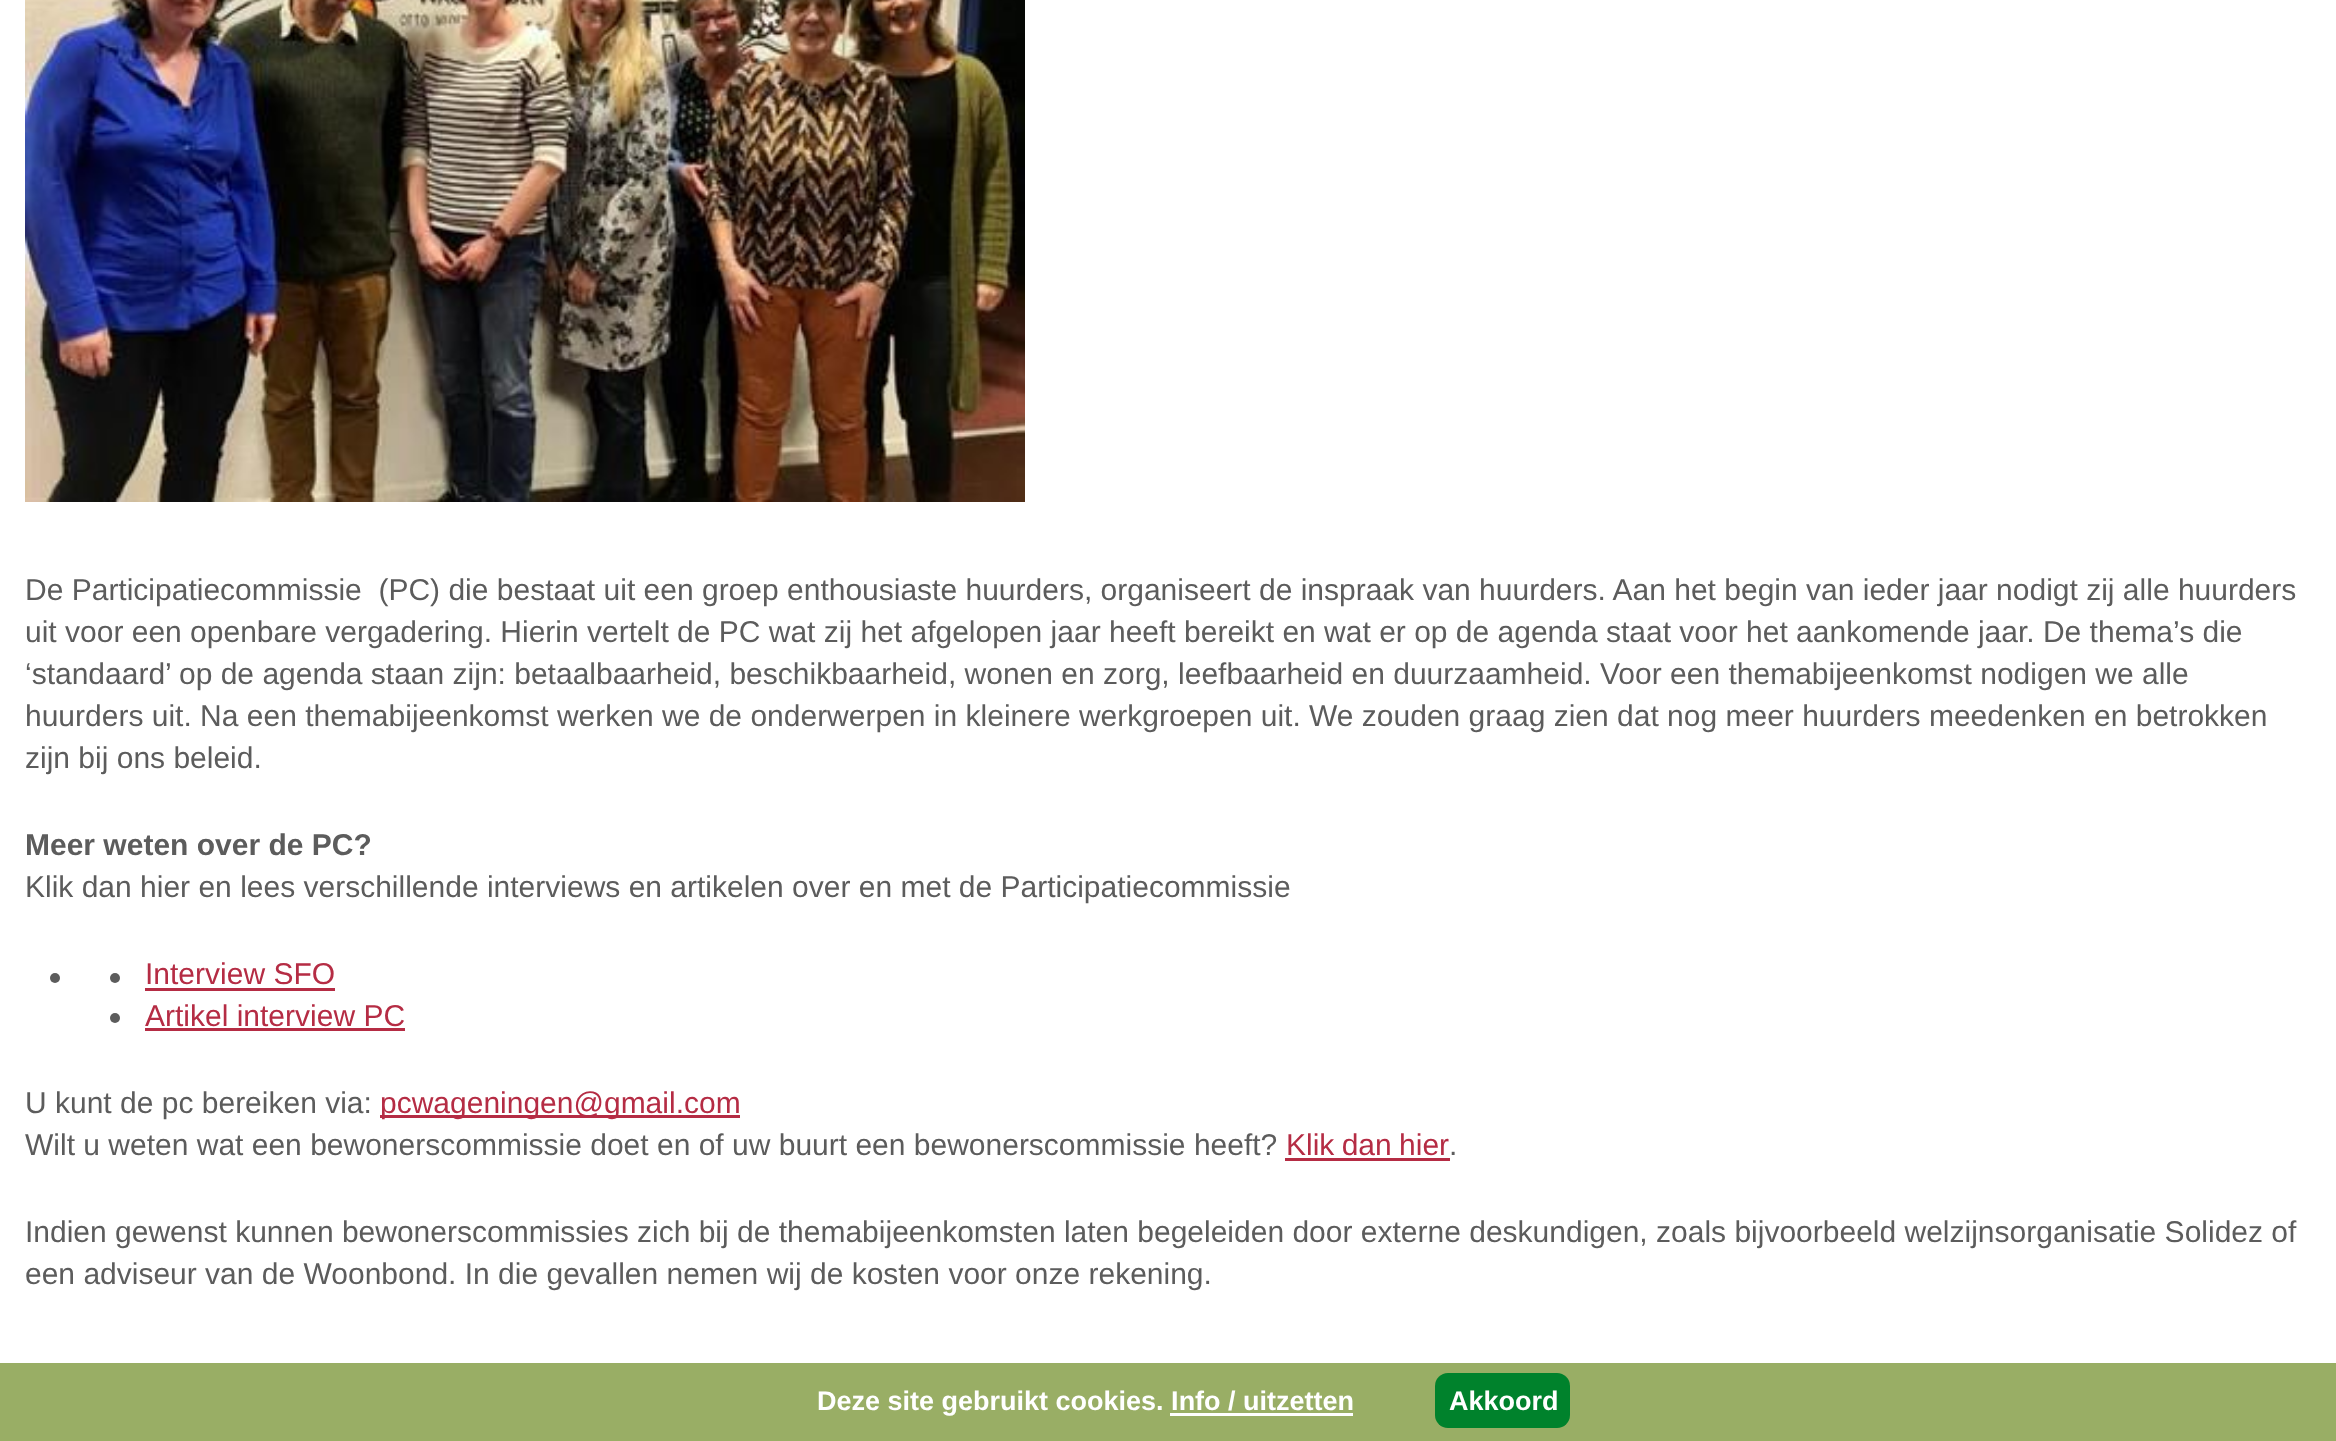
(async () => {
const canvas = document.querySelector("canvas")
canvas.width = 2336
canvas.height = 1441
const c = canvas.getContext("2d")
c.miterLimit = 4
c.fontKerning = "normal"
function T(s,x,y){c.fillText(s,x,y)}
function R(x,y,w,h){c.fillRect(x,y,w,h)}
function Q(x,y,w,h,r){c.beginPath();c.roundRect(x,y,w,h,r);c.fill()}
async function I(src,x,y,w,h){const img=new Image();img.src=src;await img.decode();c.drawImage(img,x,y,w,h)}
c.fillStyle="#fff"
R(0,0,2336,1441)
await I("1.png",25,0,1000,502)
c.font="30px Liberation Sans"
c.fillStyle="#5c5c5c"
T("De Participatiecommissie  (PC) die bestaat uit een groep enthousiaste huurders, organiseert de inspraak van huurders. Aan het begin van ieder jaar nodigt zij alle huurders",25,600)
T("uit voor een openbare vergadering. Hierin vertelt de PC wat zij het afgelopen jaar heeft bereikt en wat er op de agenda staat voor het aankomende jaar. De thema’s die",25,642)
T("‘standaard’ op de agenda staan zijn: betaalbaarheid, beschikbaarheid, wonen en zorg, leefbaarheid en duurzaamheid. Voor een themabijeenkomst nodigen we alle",25,684)
T("huurders uit. Na een themabijeenkomst werken we de onderwerpen in kleinere werkgroepen uit. We zouden graag zien dat nog meer huurders meedenken en betrokken",25,726)
T("zijn bij ons beleid.",25,768)
c.font="bold 30px Liberation Sans"
T("Meer weten over de PC?",25,855)
c.font="30px Liberation Sans"
T("Klik dan hier en lees verschillende interviews en artikelen over en met de Participatiecommissie",25,897)
c.beginPath()
c.arc(55,978,5,0,7)
c.fill()
c.beginPath()
c.arc(115,978,5,0,7)
c.fill()
c.fillStyle="#b52c44"
T("Interview SFO",145,984)
R(145,988,190,3)
c.fillStyle="#5c5c5c"
c.beginPath()
c.arc(115,1018,5,0,7)
c.fill()
c.fillStyle="#b52c44"
T("Artikel interview PC",145,1026)
R(145,1028,260,3)
c.fillStyle="#5c5c5c"
T("U kunt de pc bereiken via:",25,1113)
c.fillStyle="#b52c44"
R(380,1115,360,3)
T("pcwageningen@gmail.com",380,1113)
c.fillStyle="#5c5c5c"
T("Wilt u weten wat een bewonerscommissie doet en of uw buurt een bewonerscommissie heeft?",25,1155)
c.wordSpacing="-1px"
c.fillStyle="#b52c44"
T("Klik dan hier",1286,1155)
R(1285,1158,165,3)
c.wordSpacing="0px"
c.fillStyle="#5c5c5c"
T(".",1449,1155)
T("Indien gewenst kunnen bewonerscommissies zich bij de themabijeenkomsten laten begeleiden door externe deskundigen, zoals bijvoorbeeld welzijnsorganisatie Solidez of",25,1242)
T("een adviseur van de Woonbond. In die gevallen nemen wij de kosten voor onze rekening.",25,1284)
c.fillStyle="#99ae65"
R(0,1363,2336,78)
c.font="bold 27px Liberation Sans"
c.fillStyle="#fff"
T("Deze site gebruikt cookies. Info / uitzetten",817,1410)
c.fillStyle="#00822c"
Q(1435,1373,135,55,13)
c.fillStyle="#fff"
T("Akkoord",1449,1410)
R(1170,1413,183,3)
})()
